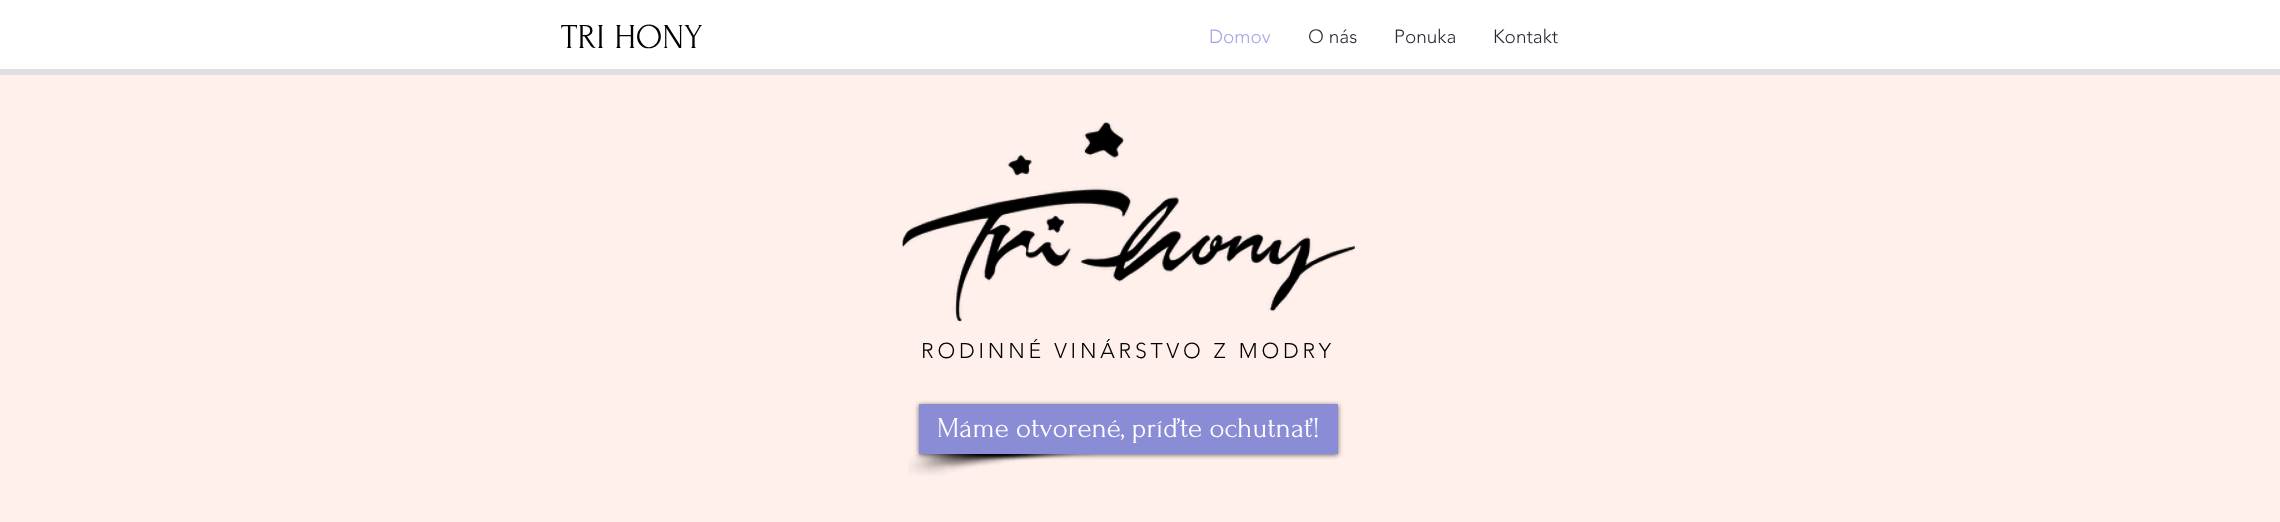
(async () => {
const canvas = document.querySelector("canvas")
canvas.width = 2280
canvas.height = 522
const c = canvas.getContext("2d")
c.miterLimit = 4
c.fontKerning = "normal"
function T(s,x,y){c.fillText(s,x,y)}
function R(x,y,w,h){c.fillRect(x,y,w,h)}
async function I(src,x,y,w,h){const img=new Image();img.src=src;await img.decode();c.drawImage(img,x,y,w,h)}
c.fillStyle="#fff0ec"
R(0,0,2280,522)
c.fillStyle="#fff"
R(0,0,2280,69)
c.fillStyle="#dfdfe1"
R(0,69,2280,6)
c.font="35px Forum"
c.fillStyle="#000"
T("TRI HONY",561,48)
c.font="300 19px 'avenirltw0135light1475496'"
c.fillStyle="#a4a4e4"
T("Domov",1209,43)
c.fillStyle="#282936"
T("O nás",1308,43)
T("Ponuka",1394,43)
T("Kontakt",1493,43)
await I("1.png",902,122,453,200)
c.letterSpacing="3.8px"
c.font="300 21.25px 'avenirltw0135light1475496'"
c.fillStyle="#000"
T("RODINNÉ VINÁRSTVO Z MODRY",921,358)
await I("2.png",908,454,186,22)
c.fillStyle="#00000099"
c.filter="blur(2.5px)"
c.beginPath()
c.rect(919,405,419,50)
c.fill()
c.filter="none"
c.fillStyle="#8b8cd6"
R(919,404,419,50)
c.letterSpacing="0px"
c.font="28.75px Forum"
c.fillStyle="#fff"
T("Máme otvorené, príďte ochutnať!",937,437)
})()
